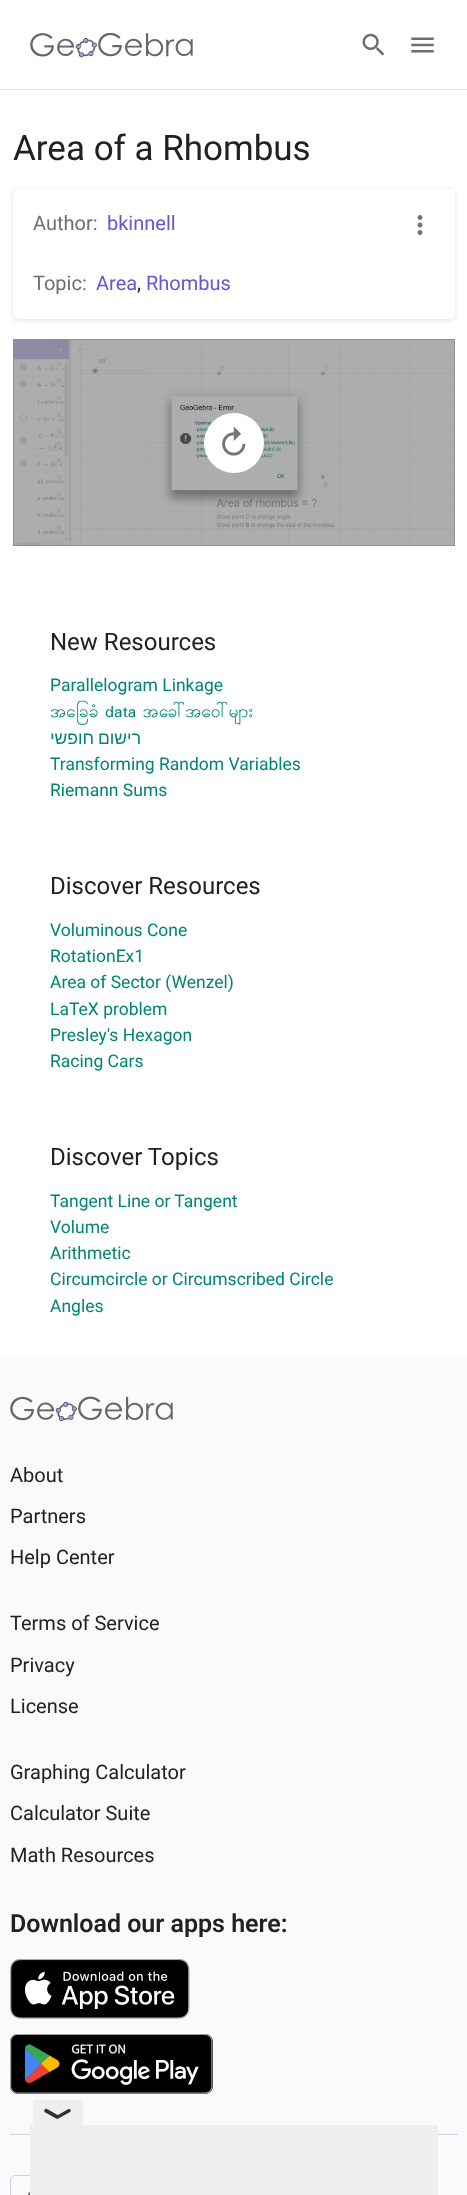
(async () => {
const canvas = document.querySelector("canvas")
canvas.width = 467
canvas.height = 2195
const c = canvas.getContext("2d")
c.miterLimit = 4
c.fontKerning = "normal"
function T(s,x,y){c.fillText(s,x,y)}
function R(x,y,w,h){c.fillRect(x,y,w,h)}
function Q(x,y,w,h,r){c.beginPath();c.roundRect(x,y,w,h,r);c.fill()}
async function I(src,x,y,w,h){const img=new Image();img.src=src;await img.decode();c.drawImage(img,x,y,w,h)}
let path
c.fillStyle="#fff"
R(0,0,467,2195)
c.fillStyle="#e6e6eb"
R(0,89,467,1)
await I("1.png",30,33,163,25)
await I("2.png",362,33,23,23)
await I("3.png",411,37,23,16)
c.font="35px Roboto"
c.fillStyle="#212121"
T("Area of a Rhombus",13,160)
c.fillStyle="#1c1c1f24"
c.filter="blur(2.5px)"
c.beginPath()
c.roundRect(13,190,442,130,5)
c.fill()
c.filter="none"
c.fillStyle="#fff"
Q(13,189,442,130,5)
c.font="20px Roboto"
c.fillStyle="#6e6d73"
T("Author:",33,230)
c.fillStyle="#6557d2"
T("bkinnell",107,230)
c.fillStyle="#6e6d73"
T("Topic:",33,290)
c.fillStyle="#6557d2"
T("Area",96,290)
c.fillStyle="#212121"
T(",",137,290)
c.fillStyle="#6557d2"
T("Rhombus",146,290)
await I("4.png",417,215,6,20)
await I("5.png",13,340,442,207)
c.strokeStyle="#8f8f8f"
c.strokeRect(13.5,339.5,441,206)
c.fillStyle="#fff"
c.beginPath()
c.arc(234,443,30,0,7)
c.fill()
await I("6.png",222,426,24,30)
c.font="24px Roboto"
c.fillStyle="#212121"
T("New Resources",50,650)
c.font="17.5px Roboto"
c.fillStyle="#008475"
T("Parallelogram Linkage",50,691)
c.font="17.5px Padauk"
T("အခြေခံ data အခေါ်အဝေါ်များ",50,717)
c.wordSpacing="-1px"
c.direction="rtl"
c.font="17.5px Liberation Sans"
T("רישום חופשי",141,744)
c.wordSpacing="0px"
c.direction="ltr"
c.font="17.5px Roboto"
T("Transforming Random Variables",50,770)
T("Riemann Sums",50,796)
c.font="24px Roboto"
c.fillStyle="#212121"
T("Discover Resources",50,894)
c.font="17.5px Roboto"
c.fillStyle="#008475"
T("Voluminous Cone",50,936)
T("RotationEx1",50,962)
T("Area of Sector (Wenzel)",50,988)
T("LaTeX problem",50,1015)
T("Presley's Hexagon",50,1041)
T("Racing Cars",50,1067)
c.font="24px Roboto"
c.fillStyle="#212121"
T("Discover Topics",50,1165)
c.font="17.5px Roboto"
c.fillStyle="#008475"
T("Tangent Line or Tangent",50,1207)
T("Volume",50,1233)
T("Arithmetic",50,1259)
T("Circumcircle or Circumscribed Circle",50,1285)
T("Angles",50,1312)
c.fillStyle="#fafafc"
R(0,1356,467,839)
await I("7.png",10,1396,163,25)
c.font="20px Roboto"
c.fillStyle="#212121"
T("About",10,1482)
T("Partners",10,1523)
T("Help Center",10,1564)
T("Terms of Service",10,1630)
T("Privacy",10,1672)
T("License",10,1713)
T("Graphing Calculator",10,1779)
T("Calculator Suite",10,1820)
T("Math Resources",10,1862)
c.font="600 25px Roboto"
T("Download our apps here:",10,1932)
await I("8.png",10,1959,180,60)
await I("9.png",10,2034,203,60)
c.fillStyle="#d1d0d6"
R(10,2134,448,1)
c.beginPath()
c.roundRect(10.5,2175.5,289,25,4.5)
c.strokeStyle="#d1d0d6"
c.stroke()
await I("10.png",27,2191,3,4)
c.fillStyle="#efefef"
c.beginPath()
c.roundRect(33,2100,50,25,[2.5,2.5,0,0])
c.fill()
c.fillStyle="#313131"
path = new Path2D("M47 2109l11.5 6.5c1 2-1 4-2.5 3l-11.5-6.5c-1-2 1-4 2.5-3z")
c.fill(path)
path = new Path2D("M57 2115.5l11.5-6.5c2-.5 3 2 1.5 3l-11.5 6.5c-2 .5-3-2.5-1.5-3z")
c.fill(path)
c.fillStyle="#efefef"
R(30,2125,408,70)
})()
